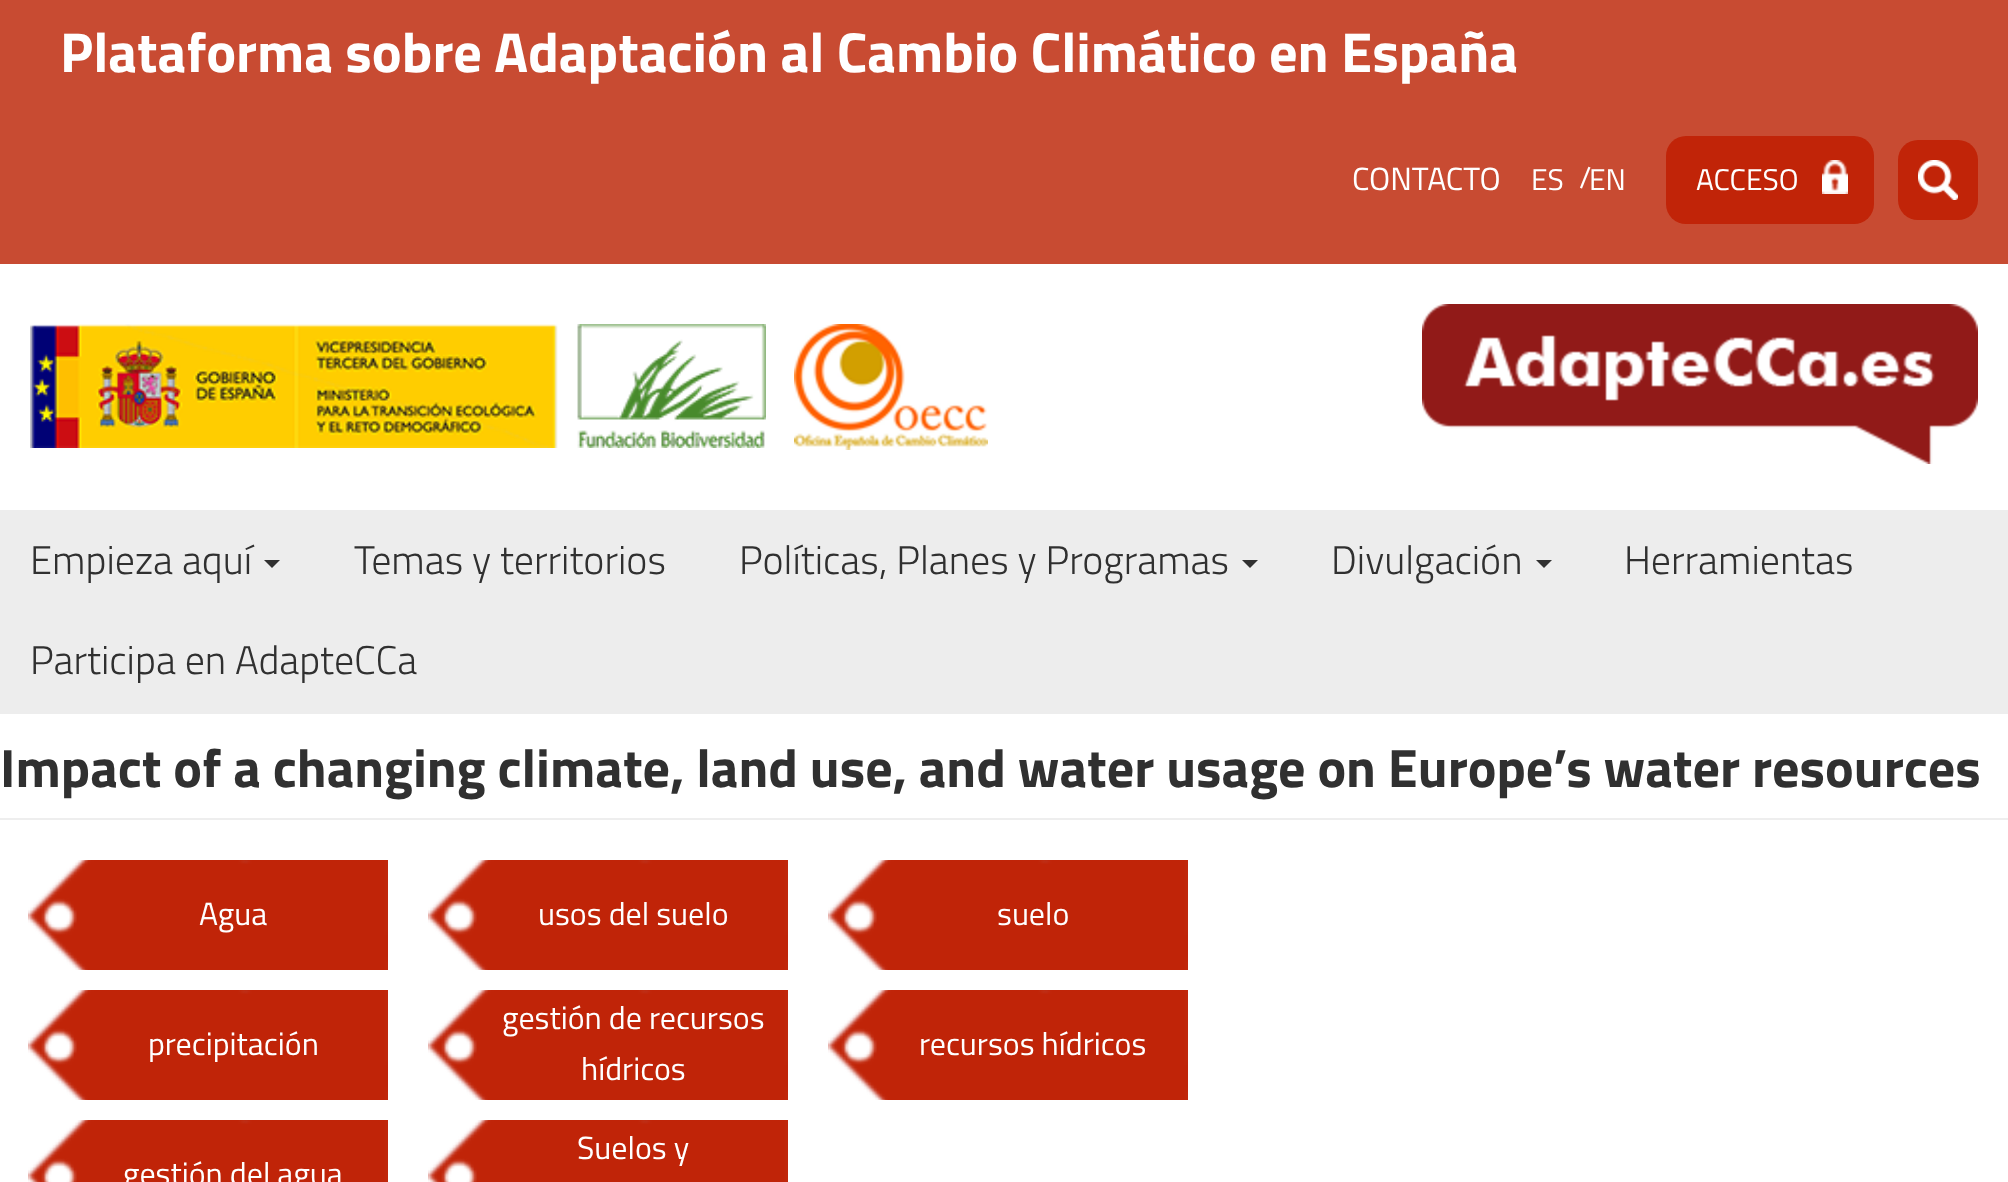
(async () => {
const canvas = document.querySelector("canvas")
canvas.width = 2008
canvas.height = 1182
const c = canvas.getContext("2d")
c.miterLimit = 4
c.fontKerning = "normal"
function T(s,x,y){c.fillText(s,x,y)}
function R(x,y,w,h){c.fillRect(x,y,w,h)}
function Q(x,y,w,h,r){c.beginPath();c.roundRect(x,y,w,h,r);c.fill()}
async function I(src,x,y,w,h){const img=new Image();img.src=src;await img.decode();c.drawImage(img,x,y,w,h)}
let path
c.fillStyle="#fff"
R(0,0,2008,1182)
c.fillStyle="#c84b32"
R(0,0,2008,264)
c.font="bold 56.25px Titillium Web"
c.fillStyle="#fff"
T("Plataforma sobre Adaptación al Cambio Climático en España",60,72)
c.font="32px Titillium Web"
T("CONTACTO",1352,190)
c.font="30px Titillium Web"
T("ES",1531,190)
T("/",1579,188)
T("EN",1589,190)
c.fillStyle="#c12408"
Q(1666,136,208,88,20)
c.fillStyle="#fff"
T("ACCESO",1696,190)
await I("1.png",1822,160,26,34)
c.fillStyle="#c12408"
Q(1898,140,80,80,20)
await I("2.png",1918,160,40,40)
await I("3.png",30,324,736,124)
await I("4.png",794,324,194,126)
await I("5.png",1422,304,556,160)
c.fillStyle="#ededed"
R(0,510,2008,204)
c.font="300 40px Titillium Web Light"
c.fillStyle="#303030"
T("Empieza aquí",30,574)
path = new Path2D("M264 560h16l-8 8z")
c.fill(path)
T("Temas y territorios",354,574)
T("Políticas, Planes y Programas",739,574)
path = new Path2D("M1242 560h16l-8 8z")
c.fill(path)
T("Divulgación",1331,574)
path = new Path2D("M1536 560h16l-8 8z")
c.fill(path)
T("Herramientas",1624,574)
T("Participa en AdapteCCa",30,674)
c.fillStyle="#eee"
R(0,818,2008,2)
c.font="bold 54px Titillium Web"
c.fillStyle="#303030"
T("Impact of a changing climate, land use, and water usage on Europe’s water resources",0,787)
await I("6.png",28,860,360,110)
c.font="32px Titillium Web"
c.fillStyle="#fff"
T("Agua",199,925)
await I("6.png",428,860,360,110)
T("usos del suelo",538,925)
await I("7.png",828,860,360,110)
T("suelo",997,925)
await I("6.png",28,990,360,110)
T("precipitación",148,1055)
await I("6.png",428,990,360,110)
T("gestión de recursos",502,1029)
T("hídricos",581,1080)
await I("7.png",828,990,360,110)
T("recursos hídricos",919,1055)
await I("8.png",428,1120,360,62)
T("Suelos y",577,1159)
await I("8.png",28,1120,360,62)
T("gestión del agua",123,1185)
})()
